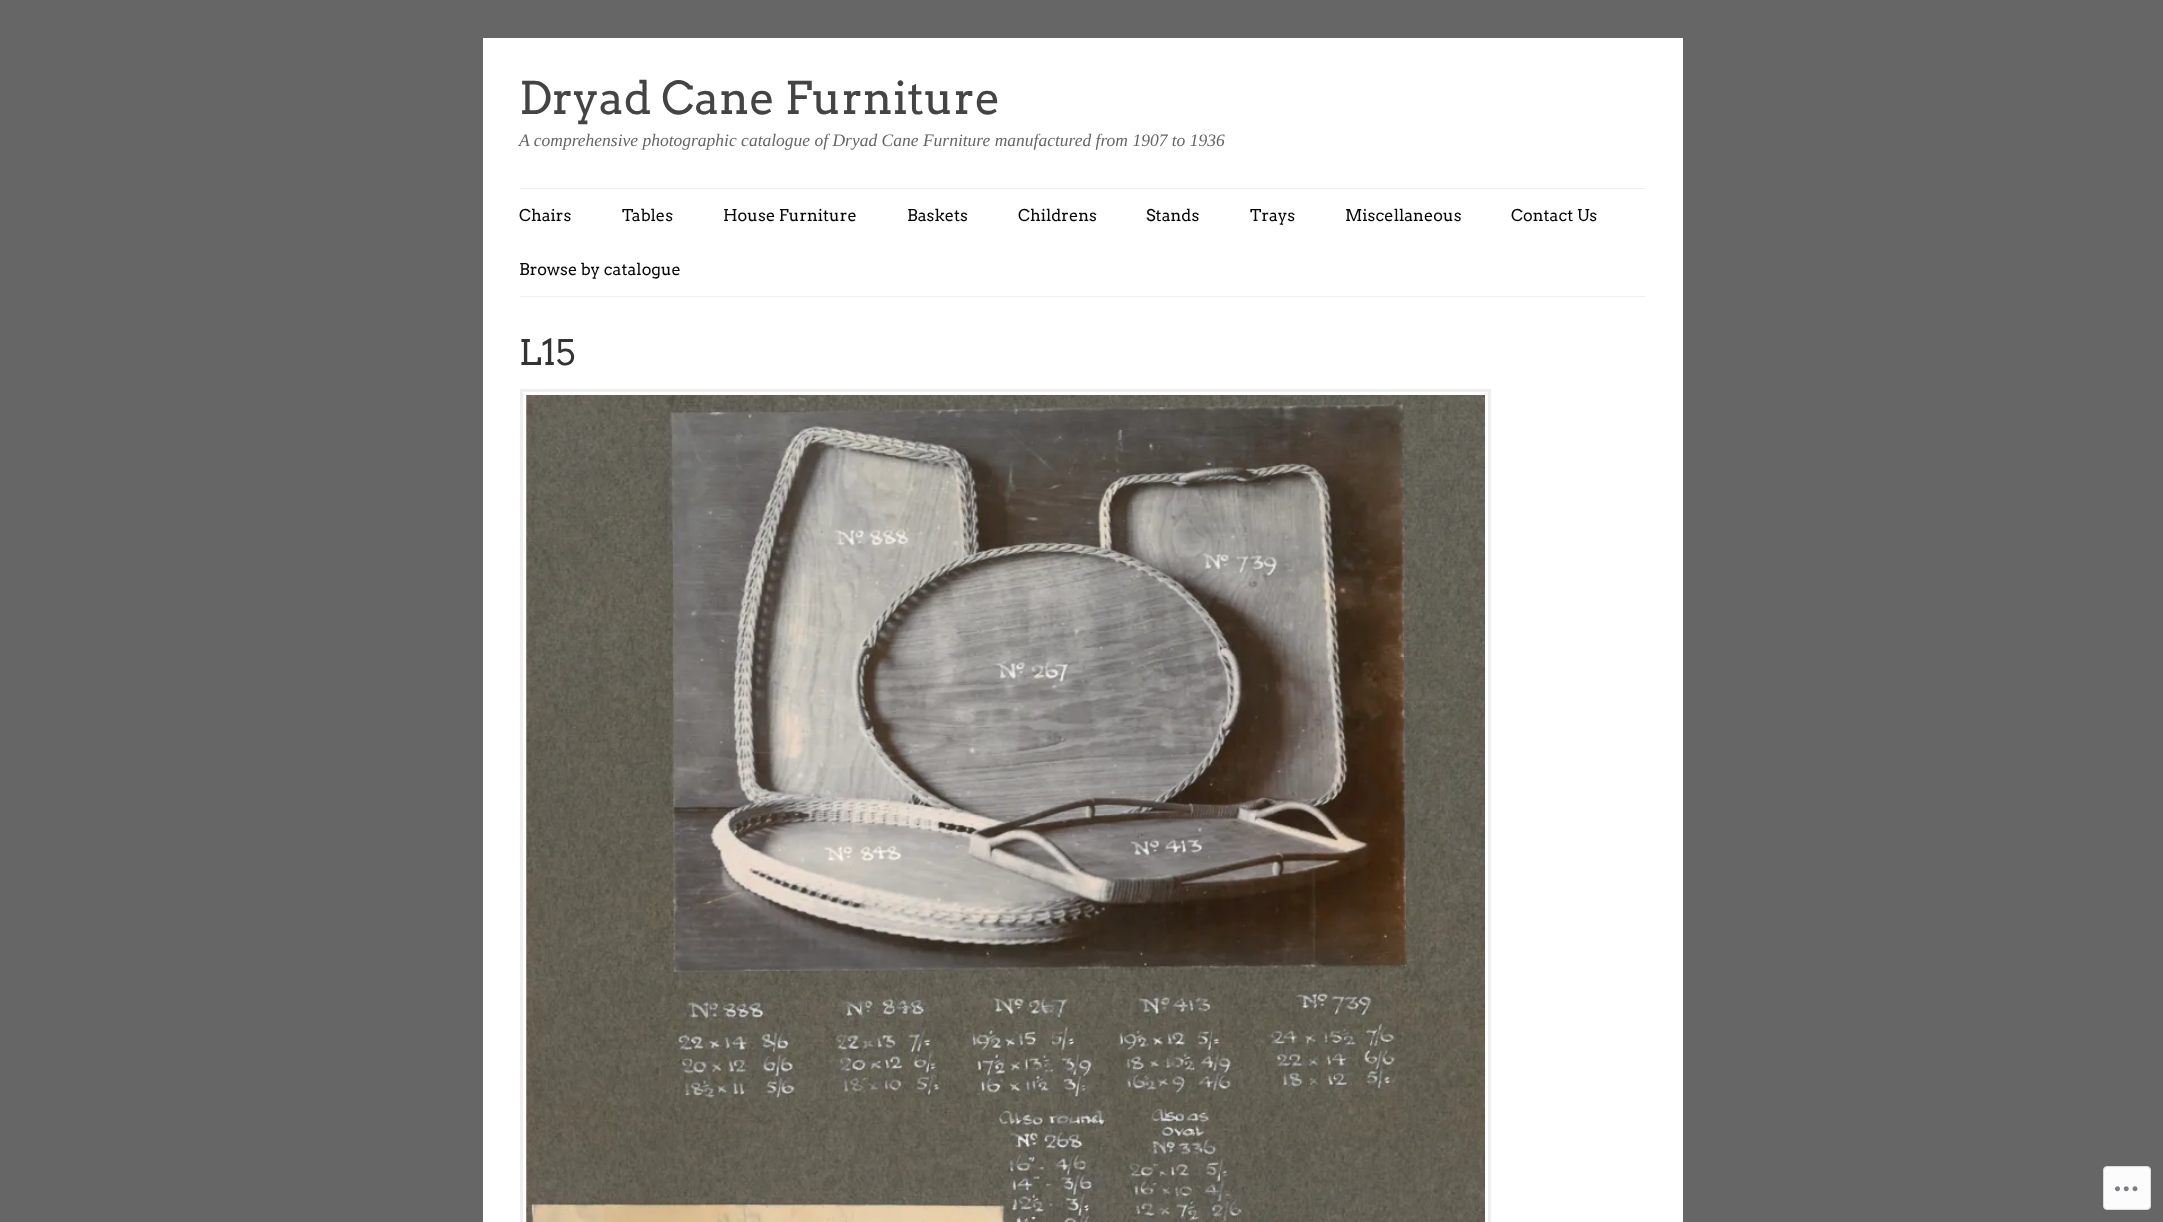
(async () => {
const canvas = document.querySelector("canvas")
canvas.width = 2163
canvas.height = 1222
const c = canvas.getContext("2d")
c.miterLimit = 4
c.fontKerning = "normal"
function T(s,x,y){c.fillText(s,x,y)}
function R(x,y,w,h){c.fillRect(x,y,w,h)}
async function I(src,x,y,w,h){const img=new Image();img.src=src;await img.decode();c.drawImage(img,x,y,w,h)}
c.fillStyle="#666"
R(0,0,2163,1222)
c.fillStyle="#fff"
R(483,38,1200,1184)
c.font="45px Arvo"
c.fillStyle="#444"
T("Dryad Cane Furniture",519,114)
c.font="italic 17.5px Liberation Serif"
c.fillStyle="#666"
T("A comprehensive photographic catalogue of Dryad Cane Furniture manufactured from 1907 to 1936",519,146)
c.fillStyle="#efefef"
R(520,188,1125,1)
R(520,296,1125,1)
c.font="16.25px Arvo"
c.fillStyle="#070707"
T("Chairs",519,221)
T("Tables",622,221)
T("House Furniture",723,221)
T("Baskets",907,221)
T("Childrens",1018,221)
T("Stands",1146,221)
T("Trays",1250,221)
T("Miscellaneous",1345,221)
T("Contact Us",1511,221)
T("Browse by catalogue",519,275)
c.font="35px Arvo"
c.fillStyle="#333"
T("L15",519,365)
c.strokeStyle="#eee"
c.lineWidth=3
c.strokeRect(521.5,390.5,968,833)
await I("1.png",526,395,959,827)
c.fillStyle="#fcfcfc"
c.beginPath()
c.roundRect(2103.5,1166.5,47,43,3.5)
c.fill()
c.strokeStyle="#dadadc"
c.lineWidth=1
c.stroke()
await I("2.png",2115,1186,23,6)
})()
